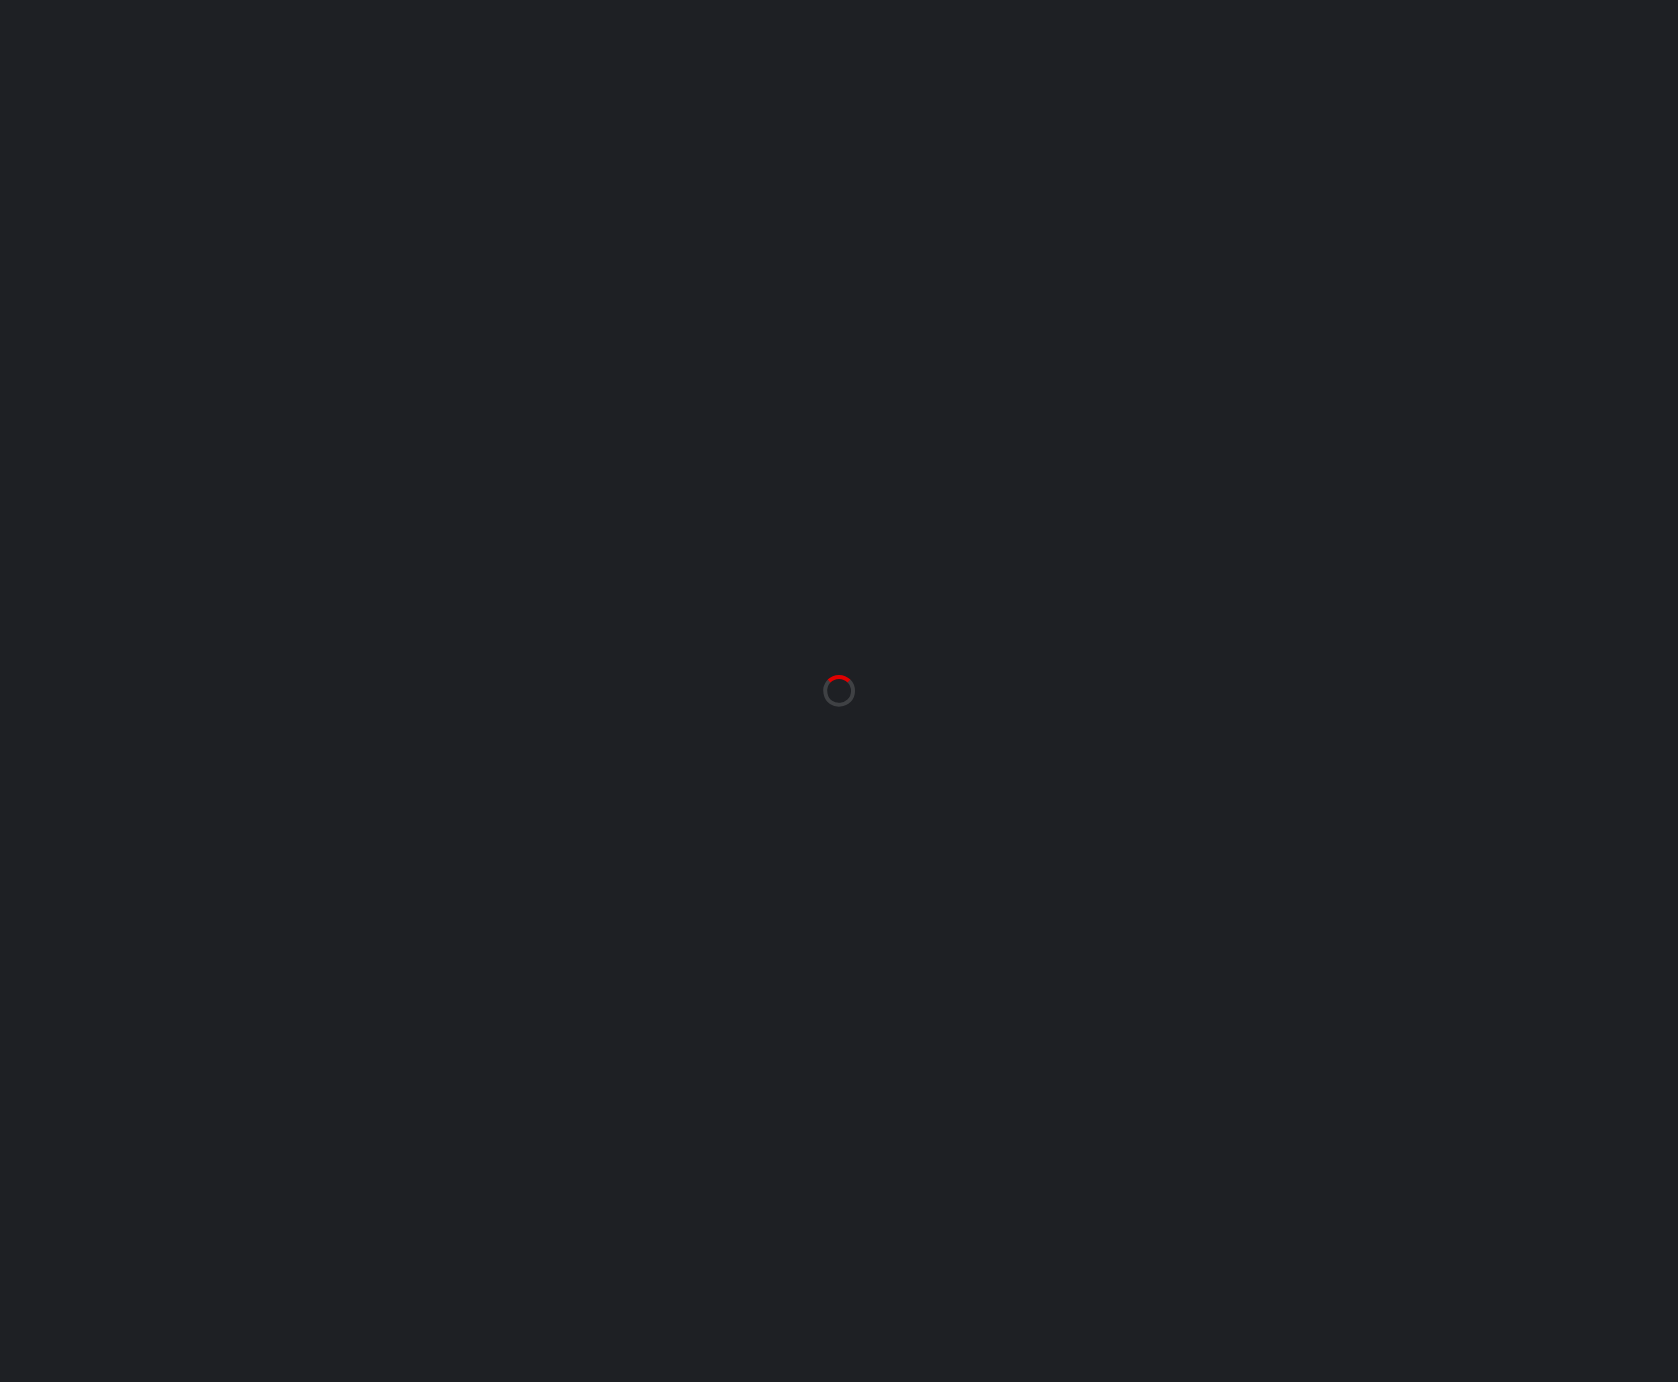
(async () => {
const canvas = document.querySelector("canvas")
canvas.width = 1678
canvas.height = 1382
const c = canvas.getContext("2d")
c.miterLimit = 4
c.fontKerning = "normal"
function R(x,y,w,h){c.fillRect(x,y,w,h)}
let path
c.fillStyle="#1e2024"
R(0,0,1678,1382)
path = new Path2D("M829 681c5.5-5.5 14.5-5.5 20 0")
c.strokeStyle="#e00000"
c.lineWidth=4
c.stroke(path)
path = new Path2D("M849 681c2.5 2.5 4 6.5 4 10c0 16.5-24.5 19-27.5 2.5c-1-4.5 .5-9 3.5-12.5")
c.strokeStyle="#ffffff26"
c.stroke(path)
})()
